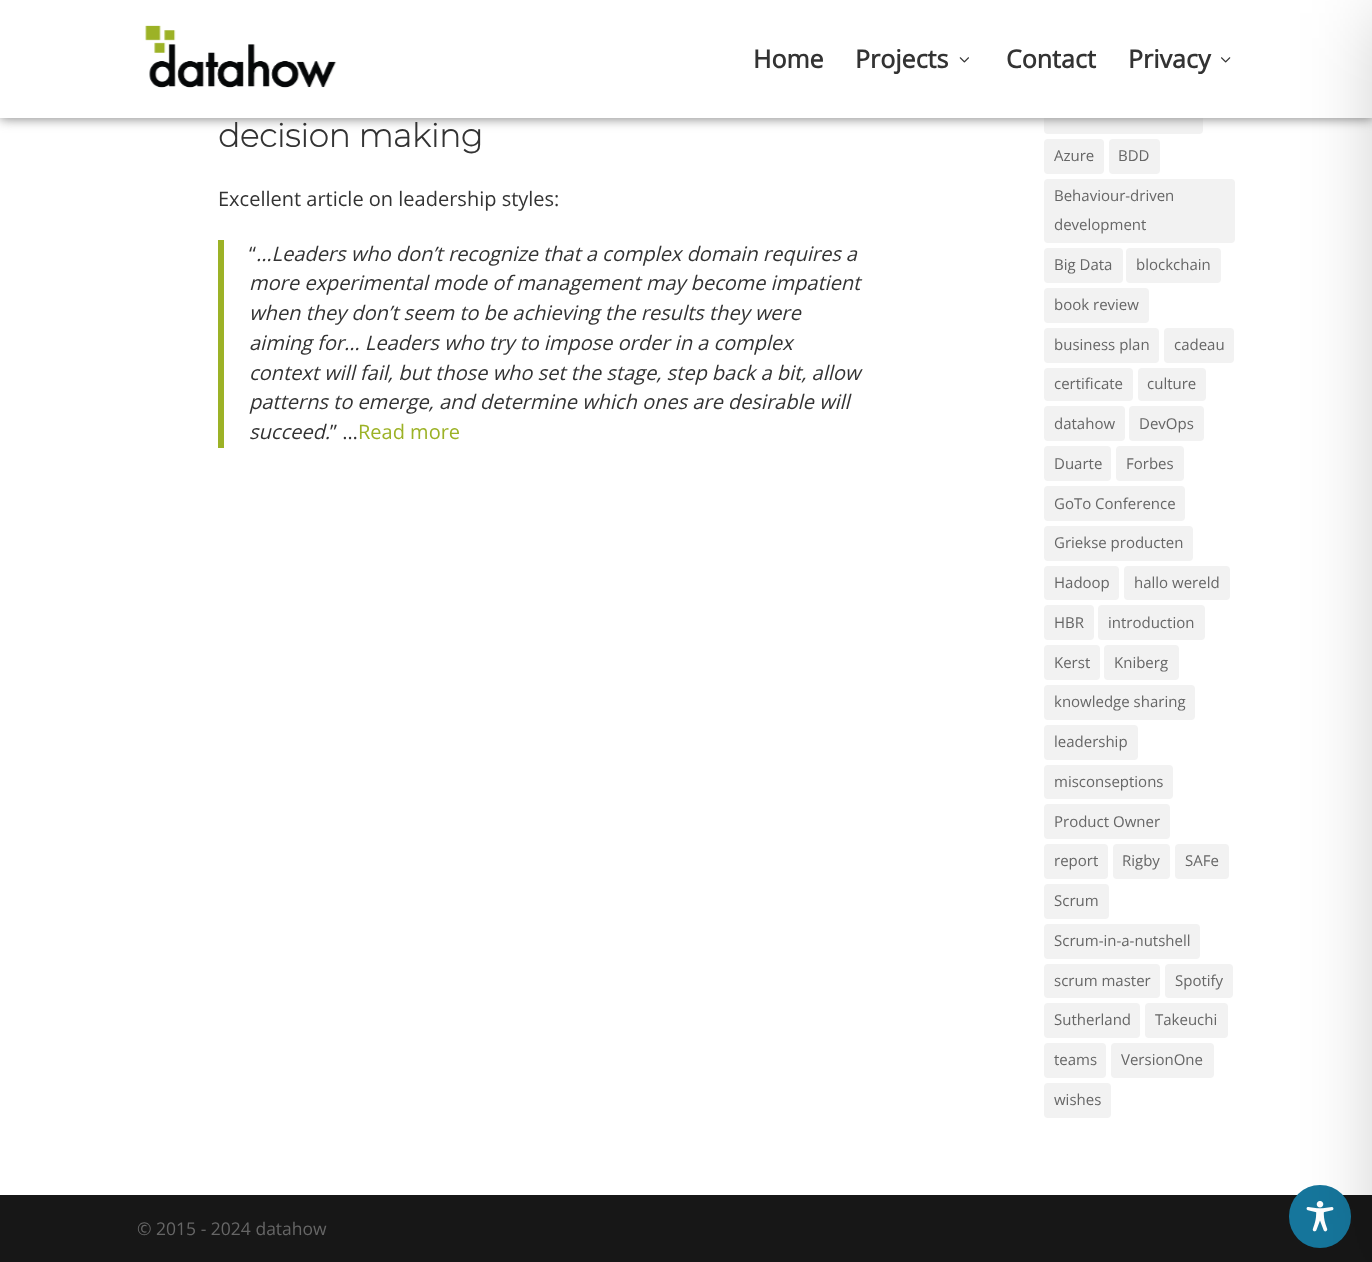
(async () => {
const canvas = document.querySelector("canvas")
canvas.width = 1372
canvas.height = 1262
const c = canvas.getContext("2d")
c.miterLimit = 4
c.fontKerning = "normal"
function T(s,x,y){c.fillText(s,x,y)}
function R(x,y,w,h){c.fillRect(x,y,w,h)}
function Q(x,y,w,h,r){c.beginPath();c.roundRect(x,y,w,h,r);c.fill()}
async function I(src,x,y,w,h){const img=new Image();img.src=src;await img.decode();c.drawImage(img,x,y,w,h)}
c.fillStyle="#fff"
R(0,0,1372,1262)
c.fillStyle="#f2f2f2"
Q(1044,99,159,35,4)
c.fillStyle="#888"
c.filter="blur(6px)"
c.beginPath()
c.rect(0,1,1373,118)
c.fill()
c.filter="none"
c.fillStyle="#fff"
R(0,0,1372,118)
await I("1.png",145,25,192,63)
c.font="bold 25px Open Sans"
c.fillStyle="#333"
T("Home",753,68)
T("Projects",855,68)
await I("2.png",959,57,10,6)
T("Contact",1006,68)
T("Privacy",1128,68)
await I("3.png",1221,57,10,6)
c.font="bold 32.5px Montserrat"
T("decision making",218,147)
c.font="20px Open Sans"
T("Excellent article on leadership styles:",218,206)
c.fillStyle="#9cb226"
R(218,240,6,208)
c.fillStyle="#333"
T("“",249,261)
c.font="italic 20px Open Sans"
T("…Leaders who don’t recognize that a complex domain requires a",256,261)
T("more experimental mode of management may become impatient",249,290)
T("when they don’t seem to be achieving the results they were",249,320)
T("aiming for… Leaders who try to impose order in a complex",249,350)
T("context will fail, but those who set the stage, step back a bit, allow",249,380)
T("patterns to emerge, and determine which ones are desirable will",249,409)
T("succeed.",249,439)
c.font="20px Open Sans"
T("” …",330,439)
c.fillStyle="#9cb226"
T("Read more",358,439)
c.fillStyle="#f2f2f2"
Q(1044,139,60,35,4)
c.font="15px Open Sans"
c.fillStyle="#666"
T("Azure",1054,161)
c.fillStyle="#f2f2f2"
Q(1109,139,51,35,4)
c.fillStyle="#666"
T("BDD",1118,161)
c.fillStyle="#f2f2f2"
Q(1044,179,191,64,4)
c.fillStyle="#666"
T("Behaviour-driven",1054,201)
T("development",1054,230)
c.fillStyle="#f2f2f2"
Q(1044,248,79,35,4)
c.fillStyle="#666"
T("Big Data",1054,270)
c.fillStyle="#f2f2f2"
Q(1126,248,95,35,4)
c.fillStyle="#666"
T("blockchain",1136,270)
c.fillStyle="#f2f2f2"
Q(1044,288,105,35,4)
c.fillStyle="#666"
T("book review",1054,310)
c.fillStyle="#f2f2f2"
Q(1044,328,115,35,4)
c.fillStyle="#666"
T("business plan",1054,350)
c.fillStyle="#f2f2f2"
Q(1164,328,70,35,4)
c.fillStyle="#666"
T("cadeau",1174,350)
c.fillStyle="#f2f2f2"
Q(1044,368,89,33,4)
c.fillStyle="#666"
T("certificate",1054,389)
c.fillStyle="#f2f2f2"
Q(1138,368,68,33,4)
c.fillStyle="#666"
T("culture",1147,389)
c.fillStyle="#f2f2f2"
Q(1044,406,81,35,4)
c.fillStyle="#666"
T("datahow",1054,429)
c.fillStyle="#f2f2f2"
Q(1129,406,75,35,4)
c.fillStyle="#666"
T("DevOps",1139,429)
c.fillStyle="#f2f2f2"
Q(1044,446,67,35,4)
c.fillStyle="#666"
T("Duarte",1054,469)
c.fillStyle="#f2f2f2"
Q(1116,446,68,35,4)
c.fillStyle="#666"
T("Forbes",1126,469)
c.fillStyle="#f2f2f2"
Q(1044,486,141,35,4)
c.fillStyle="#666"
T("GoTo Conference",1054,509)
c.fillStyle="#f2f2f2"
Q(1044,526,149,35,4)
c.fillStyle="#666"
T("Griekse producten",1054,548)
c.fillStyle="#f2f2f2"
Q(1044,566,75,34,4)
c.fillStyle="#666"
T("Hadoop",1054,588)
c.fillStyle="#f2f2f2"
Q(1124,566,106,34,4)
c.fillStyle="#666"
T("hallo wereld",1134,588)
c.fillStyle="#f2f2f2"
Q(1044,605,50,35,4)
c.fillStyle="#666"
T("HBR",1054,628)
c.fillStyle="#f2f2f2"
Q(1098,605,107,35,4)
c.fillStyle="#666"
T("introduction",1108,628)
c.fillStyle="#f2f2f2"
Q(1044,645,56,35,4)
c.fillStyle="#666"
T("Kerst",1054,668)
c.fillStyle="#f2f2f2"
Q(1104,645,75,35,4)
c.fillStyle="#666"
T("Kniberg",1114,668)
c.fillStyle="#f2f2f2"
Q(1044,685,151,35,4)
c.fillStyle="#666"
T("knowledge sharing",1054,707)
c.fillStyle="#f2f2f2"
Q(1044,725,94,35,4)
c.fillStyle="#666"
T("leadership",1054,747)
c.fillStyle="#f2f2f2"
Q(1044,765,129,34,4)
c.fillStyle="#666"
T("misconseptions",1054,787)
c.fillStyle="#f2f2f2"
Q(1044,804,126,35,4)
c.fillStyle="#666"
T("Product Owner",1054,827)
c.fillStyle="#f2f2f2"
Q(1044,844,64,35,4)
c.fillStyle="#666"
T("report",1054,866)
c.fillStyle="#f2f2f2"
Q(1113,844,57,35,4)
c.fillStyle="#666"
T("Rigby",1122,866)
c.fillStyle="#f2f2f2"
Q(1175,844,54,35,4)
c.fillStyle="#666"
T("SAFe",1185,866)
c.fillStyle="#f2f2f2"
Q(1044,884,65,35,4)
c.fillStyle="#666"
T("Scrum",1054,906)
c.fillStyle="#f2f2f2"
Q(1044,924,156,35,4)
c.fillStyle="#666"
T("Scrum-in-a-nutshell",1054,946)
c.fillStyle="#f2f2f2"
Q(1044,964,116,34,4)
c.fillStyle="#666"
T("scrum master",1054,986)
c.fillStyle="#f2f2f2"
Q(1165,964,68,34,4)
c.fillStyle="#666"
T("Spotify",1175,986)
c.fillStyle="#f2f2f2"
Q(1044,1003,96,35,4)
c.fillStyle="#666"
T("Sutherland",1054,1025)
c.fillStyle="#f2f2f2"
Q(1145,1003,83,35,4)
c.fillStyle="#666"
T("Takeuchi",1155,1025)
c.fillStyle="#f2f2f2"
Q(1044,1043,62,35,4)
c.fillStyle="#666"
T("teams",1054,1065)
c.fillStyle="#f2f2f2"
Q(1111,1043,103,35,4)
c.fillStyle="#666"
T("VersionOne",1121,1065)
c.fillStyle="#f2f2f2"
Q(1044,1083,67,35,4)
c.fillStyle="#666"
T("wishes",1054,1105)
c.fillStyle="#171717"
R(0,1195,1372,67)
c.font="17.5px Open Sans"
c.fillStyle="#666"
T("© 2015 - 2024 datahow",137,1235)
c.fillStyle="#16769c"
Q(1289,1185,62,63,31)
await I("4.png",1306,1201,28,31)
c.fillStyle="#00000033"
c.filter="blur(37.5px)"
c.beginPath()
c.rect(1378,13,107,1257)
c.fill()
c.filter="none"
})()
